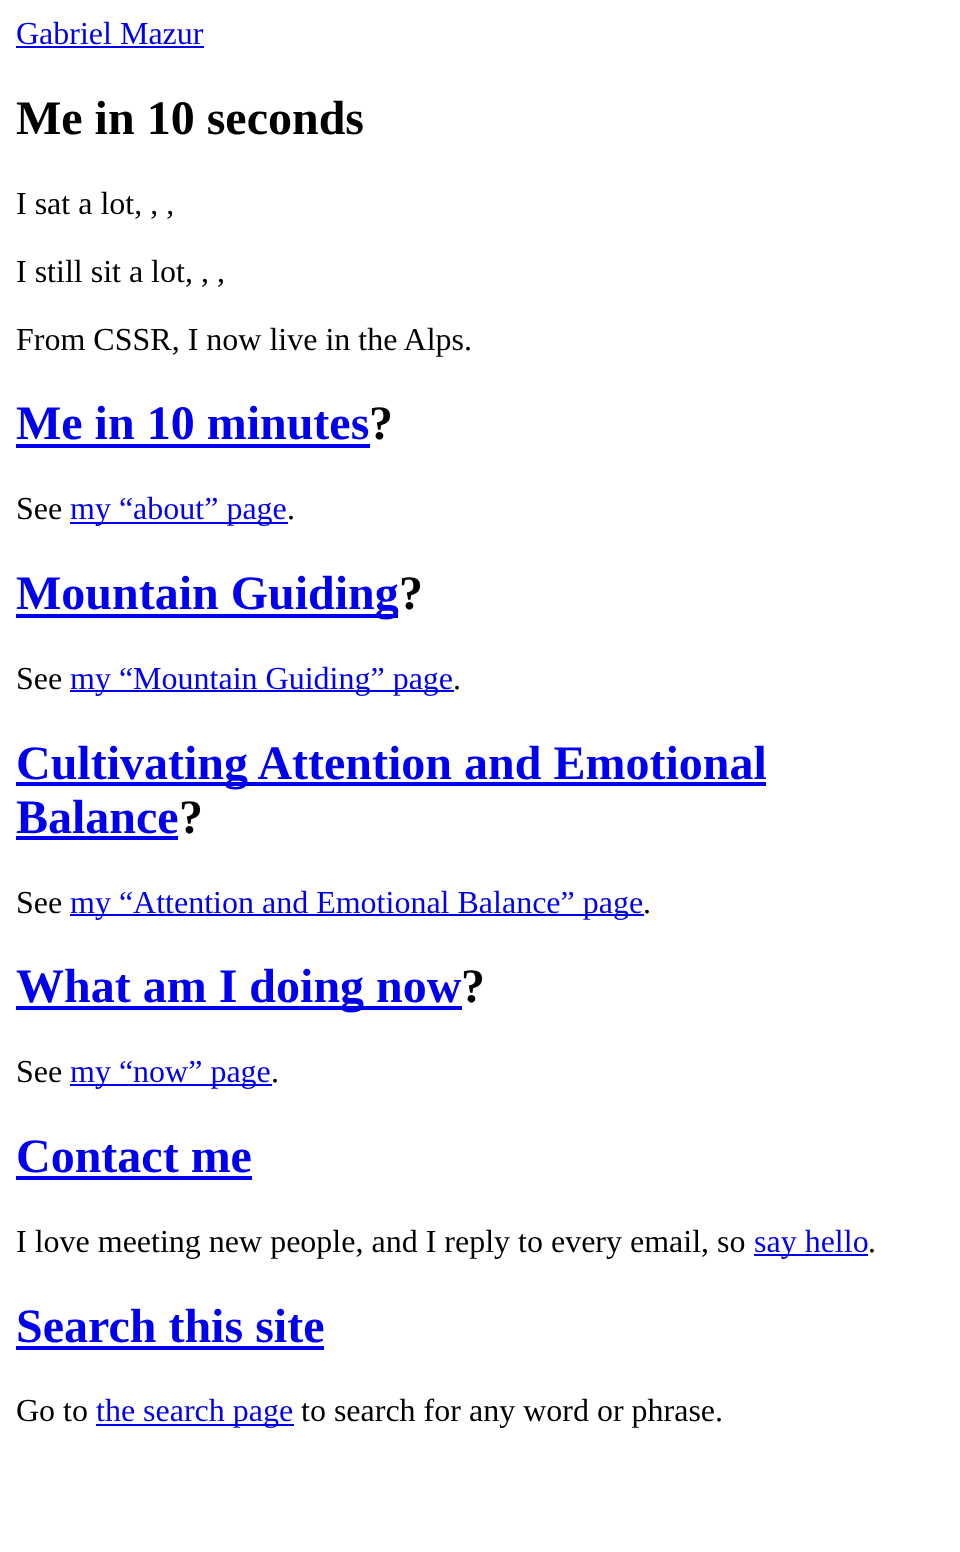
(async () => {
const canvas = document.querySelector("canvas")
canvas.width = 960
canvas.height = 1552
const c = canvas.getContext("2d")
c.miterLimit = 4
c.fontKerning = "normal"
function T(s,x,y){c.fillText(s,x,y)}
function R(x,y,w,h){c.fillRect(x,y,w,h)}
c.fillStyle="#fff"
R(0,0,960,1552)
c.font="32px Liberation Serif"
c.fillStyle="#00e"
T("Gabriel Mazur",16,44)
R(16,46,188,2)
c.font="bold 48px Liberation Serif"
c.fillStyle="#000"
T("Me in 10 seconds",16,134)
c.font="32px Liberation Serif"
T("I sat a lot, , ,",16,214)
T("I still sit a lot, , ,",16,282)
T("From CSSR, I now live in the Alps.",16,350)
c.font="bold 48px Liberation Serif"
c.fillStyle="#00e"
T("Me in 10 minutes",16,439)
R(16,444,354,4)
c.fillStyle="#000"
T("?",369,439)
c.font="32px Liberation Serif"
T("See",16,519)
c.fillStyle="#00e"
R(70,522,218,2)
T("my “about” page",70,519)
c.fillStyle="#000"
T(".",287,519)
c.fillStyle="#00e"
R(16,614,382,4)
c.font="bold 48px Liberation Serif"
T("Mountain Guiding",16,609)
c.fillStyle="#000"
T("?",399,609)
c.font="32px Liberation Serif"
T("See",16,689)
c.fillStyle="#00e"
R(70,690,384,2)
T("my “Mountain Guiding” page",70,689)
c.fillStyle="#000"
T(".",453,689)
c.fillStyle="#00e"
R(16,782,750,4)
c.font="bold 48px Liberation Serif"
T("Cultivating Attention and Emotional",16,779)
T("Balance",16,833)
R(16,836,162,4)
c.fillStyle="#000"
T("?",179,833)
c.font="32px Liberation Serif"
T("See",16,913)
c.fillStyle="#00e"
R(70,914,574,2)
T("my “Attention and Emotional Balance” page",70,913)
c.fillStyle="#000"
T(".",643,913)
c.fillStyle="#00e"
R(16,1006,446,4)
c.font="bold 48px Liberation Serif"
T("What am I doing now",16,1002)
c.fillStyle="#000"
T("?",461,1002)
c.font="32px Liberation Serif"
T("See",16,1082)
c.fillStyle="#00e"
R(70,1084,202,2)
T("my “now” page",70,1082)
c.fillStyle="#000"
T(".",271,1082)
c.font="bold 48px Liberation Serif"
c.fillStyle="#00e"
T("Contact me",16,1172)
R(16,1176,236,4)
c.font="32px Liberation Serif"
c.fillStyle="#000"
T("I love meeting new people, and I reply to every email, so",16,1252)
c.fillStyle="#00e"
R(754,1254,114,2)
T("say hello",754,1252)
c.fillStyle="#000"
T(".",868,1252)
c.font="bold 48px Liberation Serif"
c.fillStyle="#00e"
T("Search this site",16,1342)
R(16,1346,308,4)
c.font="32px Liberation Serif"
c.fillStyle="#000"
T("Go to",16,1421)
c.fillStyle="#00e"
R(96,1424,198,2)
T("the search page",96,1421)
c.fillStyle="#000"
T("to search for any word or phrase.",301,1421)
})()
